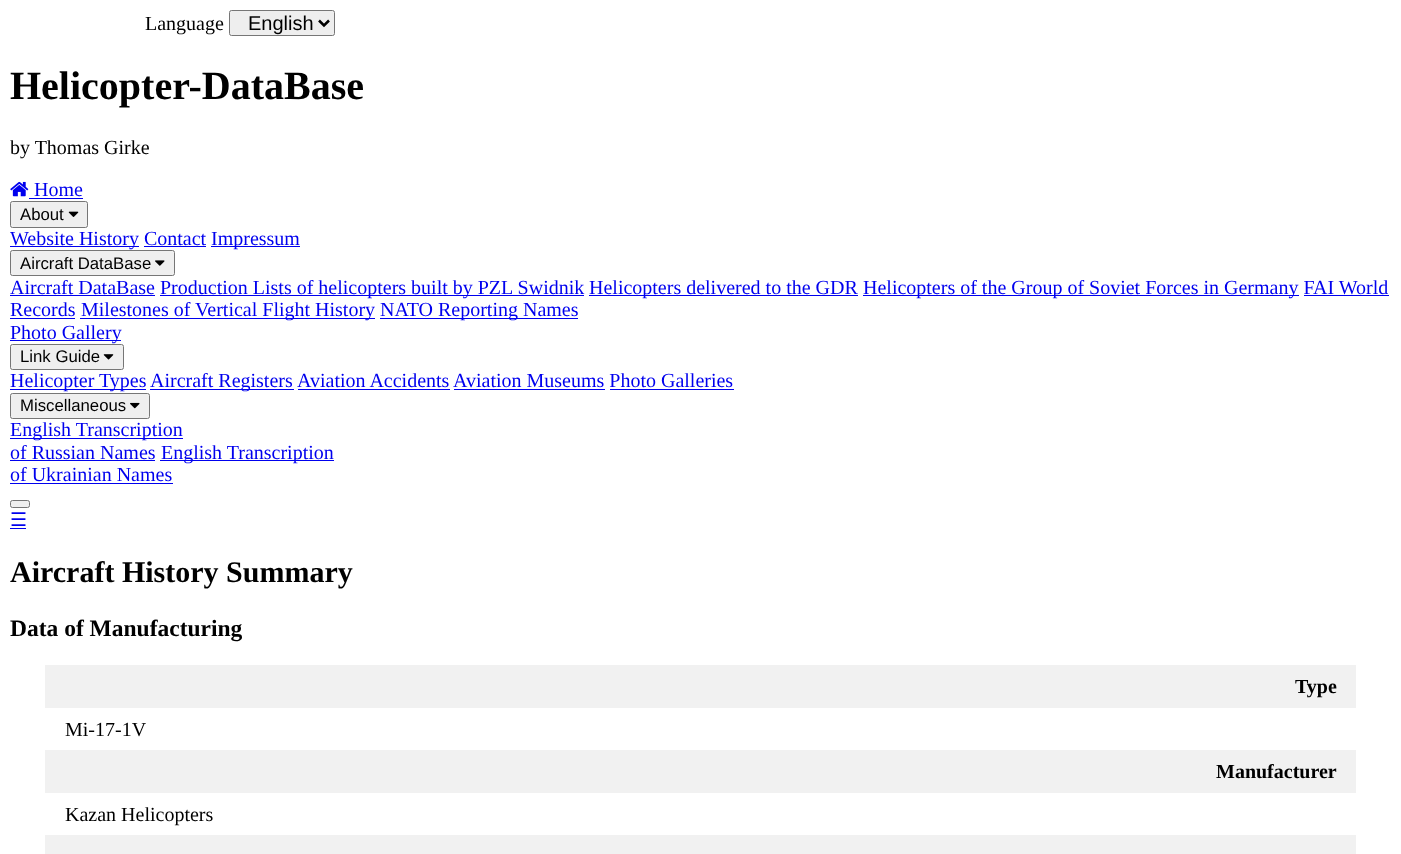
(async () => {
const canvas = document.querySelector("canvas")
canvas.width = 1401
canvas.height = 854
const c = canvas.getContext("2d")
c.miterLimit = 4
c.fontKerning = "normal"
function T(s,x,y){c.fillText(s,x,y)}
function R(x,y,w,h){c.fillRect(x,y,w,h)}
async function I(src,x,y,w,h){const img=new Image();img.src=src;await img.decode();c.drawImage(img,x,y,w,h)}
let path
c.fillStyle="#fff"
R(0,0,1401,854)
c.font="20px Liberation Serif"
c.fillStyle="#000"
T("Language",145,30)
c.fillStyle="#eee"
c.beginPath()
c.roundRect(229.5,10.5,105,25,2)
c.fill()
c.strokeStyle="#767676"
c.stroke()
path = new Path2D("M319 20.5l5 5l5-5")
c.strokeStyle="#000"
c.lineWidth=2.5
c.stroke(path)
c.font="20px Liberation Sans"
c.fillStyle="#000"
T("English",248,30)
c.font="bold 40px Liberation Serif"
T("Helicopter-DataBase",10,99)
c.font="20px Liberation Serif"
T("by Thomas Girke",10,154)
await I("1.png",10,181,19,16)
c.fillStyle="#00e"
T("Home",34,196)
R(29,198,54,1)
c.fillStyle="#efefef"
c.beginPath()
c.roundRect(10.5,201.5,77,26,2)
c.fill()
c.strokeStyle="#767676"
c.lineWidth=1
c.stroke()
c.font="16.75px Liberation Sans"
c.fillStyle="#000"
T("About",20,220)
await I("2.png",68,211,11,6)
c.fillStyle="#00e"
R(10,246,129,1)
c.font="20px Liberation Serif"
T("Website History Contact",10,245)
R(211,246,89,1)
T("Impressum",211,245)
R(144,246,62,1)
c.fillStyle="#efefef"
c.beginPath()
c.roundRect(10.5,250.5,164,25,2)
c.fill()
c.stroke()
c.font="16.75px Liberation Sans"
c.fillStyle="#000"
T("Aircraft DataBase",20,269)
await I("3.png",155,260,10,6)
c.font="20px Liberation Serif"
c.fillStyle="#00e"
T("Aircraft DataBase",10,294)
R(10,295,145,1)
R(160,295,424,1)
T("Production Lists of helicopters built by PZL Swidnik",160,294)
R(589,295,269,1)
T("Helicopters delivered to the GDR",589,294)
R(863,295,436,1)
T("Helicopters of the Group of Soviet Forces in Germany FAI World",863,294)
T("Records",10,316)
R(1304,295,85,1)
R(10,318,65,1)
R(80,318,295,1)
T("Milestones of Vertical Flight History",81,316)
R(380,318,198,1)
T("NATO Reporting Names",380,316)
R(10,340,111,1)
T("Photo Gallery",10,339)
c.fillStyle="#efefef"
c.beginPath()
c.roundRect(10.5,344.5,113,25,2)
c.fill()
c.stroke()
c.font="16.75px Liberation Sans"
c.fillStyle="#000"
T("Link Guide",20,362)
await I("4.png",103,354,11,6)
c.fillStyle="#00e"
R(10,389,136,1)
c.font="20px Liberation Serif"
T("Helicopter Types",10,387)
R(150,389,144,1)
T("Aircraft Registers",150,387)
T("Aviation Accidents",297,387)
R(298,389,152,1)
T("Aviation Museums Photo Galleries",453,387)
R(454,389,151,1)
R(610,389,124,1)
c.fillStyle="#efefef"
c.beginPath()
c.roundRect(10.5,393.5,139,25,2)
c.fill()
c.stroke()
c.font="16.75px Liberation Sans"
c.fillStyle="#000"
T("Miscellaneous",20,411)
await I("5.png",130,402,10,7)
c.fillStyle="#00e"
R(10,438,173,1)
c.font="20px Liberation Serif"
T("English Transcription",10,436)
T("of Russian Names",10,459)
R(10,460,145,1)
R(160,460,174,1)
T("English Transcription",161,459)
T("of Ukrainian Names",10,481)
R(10,483,163,1)
c.fillStyle="#efefef"
c.beginPath()
c.roundRect(10.5,500.5,19,7,2)
c.fill()
c.stroke()
c.font="19px DejaVu Sans"
c.fillStyle="#00e"
T("☰",10,526)
R(10,528,16,1)
c.font="bold 30px Liberation Serif"
c.fillStyle="#000"
T("Aircraft History Summary",10,582)
c.font="bold 23.5px Liberation Serif"
T("Data of Manufacturing",10,636)
c.fillStyle="#f1f1f1"
R(45,665,1311,43)
c.font="bold 20px Liberation Serif"
c.fillStyle="#000"
T("Type",1295,693)
c.font="20px Liberation Serif"
T("Mi-17-1V",65,736)
c.fillStyle="#f1f1f1"
R(45,750,1311,43)
c.font="bold 20px Liberation Serif"
c.fillStyle="#000"
T("Manufacturer",1216,778)
c.font="20px Liberation Serif"
T("Kazan Helicopters",65,821)
c.fillStyle="#f1f1f1"
R(45,835,1311,19)
})()
